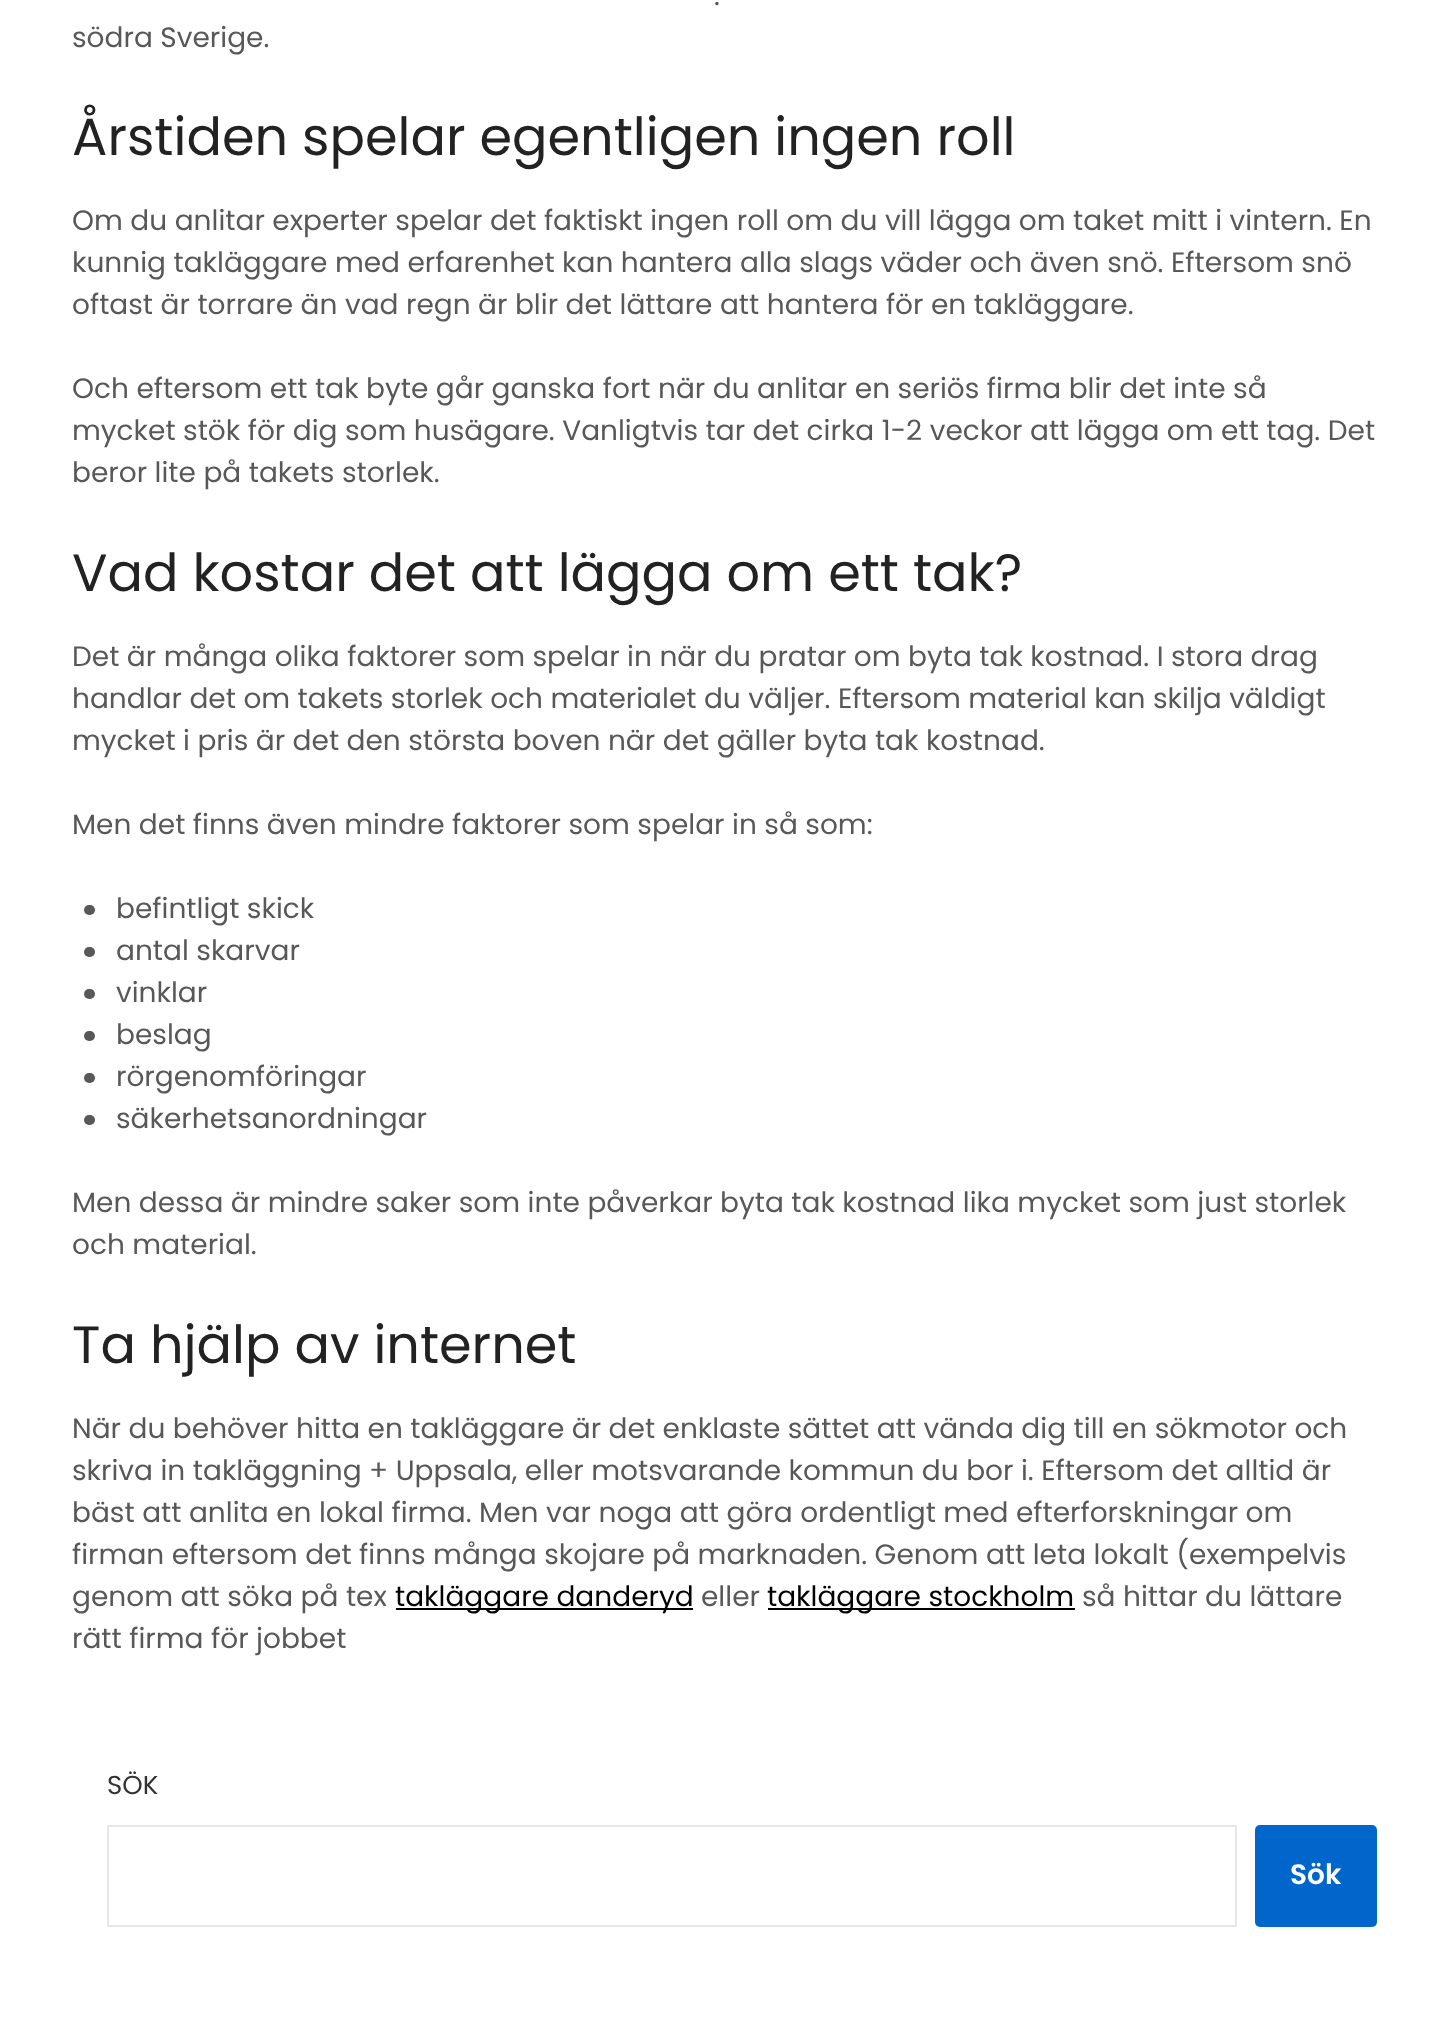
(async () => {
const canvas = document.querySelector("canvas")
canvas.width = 1448
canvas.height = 2035
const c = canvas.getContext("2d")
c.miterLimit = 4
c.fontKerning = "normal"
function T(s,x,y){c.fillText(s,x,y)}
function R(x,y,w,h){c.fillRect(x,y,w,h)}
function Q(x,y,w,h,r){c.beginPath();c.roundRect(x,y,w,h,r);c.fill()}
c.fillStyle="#fff"
R(0,0,1448,2035)
c.font="28px Poppins"
c.fillStyle="#585858"
T(".",714,5)
T("södra Sverige.",72,47)
c.font="52.5px Poppins"
c.fillStyle="#222"
T("Årstiden spelar egentligen ingen roll",72,155)
c.font="28px Poppins"
c.fillStyle="#585858"
T("Om du anlitar experter spelar det faktiskt ingen roll om du vill lägga om taket mitt i vintern. En",72,230)
T("kunnig takläggare med erfarenhet kan hantera alla slags väder och även snö. Eftersom snö",72,272)
T("oftast är torrare än vad regn är blir det lättare att hantera för en takläggare.",72,314)
T("Och eftersom ett tak byte går ganska fort när du anlitar en seriös firma blir det inte så",72,398)
T("mycket stök för dig som husägare. Vanligtvis tar det cirka 1-2 veckor att lägga om ett tag. Det",72,440)
T("beror lite på takets storlek.",72,482)
c.font="52.5px Poppins"
c.fillStyle="#222"
T("Vad kostar det att lägga om ett tak?",72,591)
c.font="28px Poppins"
c.fillStyle="#585858"
T("Det är många olika faktorer som spelar in när du pratar om byta tak kostnad. I stora drag",72,666)
T("handlar det om takets storlek och materialet du väljer. Eftersom material kan skilja väldigt",72,708)
T("mycket i pris är det den största boven när det gäller byta tak kostnad.",72,750)
T("Men det finns även mindre faktorer som spelar in så som:",72,834)
Q(84,905,11,10,5)
T("befintligt skick",116,918)
Q(84,947,11,10,5)
T("antal skarvar",116,960)
Q(84,989,11,10,5)
T("vinklar",116,1002)
Q(84,1031,11,10,5)
T("beslag",116,1044)
Q(84,1073,11,10,5)
T("rörgenomföringar",116,1086)
Q(84,1115,11,10,5)
T("säkerhetsanordningar",116,1128)
T("Men dessa är mindre saker som inte påverkar byta tak kostnad lika mycket som just storlek",72,1212)
T("och material.",72,1254)
c.font="52.5px Poppins"
c.fillStyle="#222"
T("Ta hjälp av internet",72,1363)
c.font="28px Poppins"
c.fillStyle="#585858"
T("När du behöver hitta en takläggare är det enklaste sättet att vända dig till en sökmotor och",72,1438)
T("skriva in takläggning + Uppsala, eller motsvarande kommun du bor i. Eftersom det alltid är",72,1480)
T("bäst att anlita en lokal firma. Men var noga att göra ordentligt med efterforskningar om",72,1522)
T("firman eftersom det finns många skojare på marknaden. Genom att leta lokalt (exempelvis",72,1564)
T("genom att söka på tex",72,1606)
c.fillStyle="#000"
R(396,1608,297,2)
T("takläggare danderyd",395,1606)
c.fillStyle="#585858"
T("eller",701,1606)
c.fillStyle="#000"
R(768,1608,307,2)
T("takläggare stockholm",767,1606)
c.fillStyle="#585858"
T("så hittar du lättare",1082,1606)
T("rätt firma för jobbet",72,1648)
c.font="26px Poppins"
c.fillStyle="#333"
T("SÖK",107,1794)
c.strokeStyle="#e5e6e9"
c.lineWidth=2
c.strokeRect(108,1826,1128,100)
c.fillStyle="#06c"
Q(1255,1825,122,102,5)
c.font="600 28px Poppins"
c.fillStyle="#fff"
T("Sök",1290,1884)
})()
